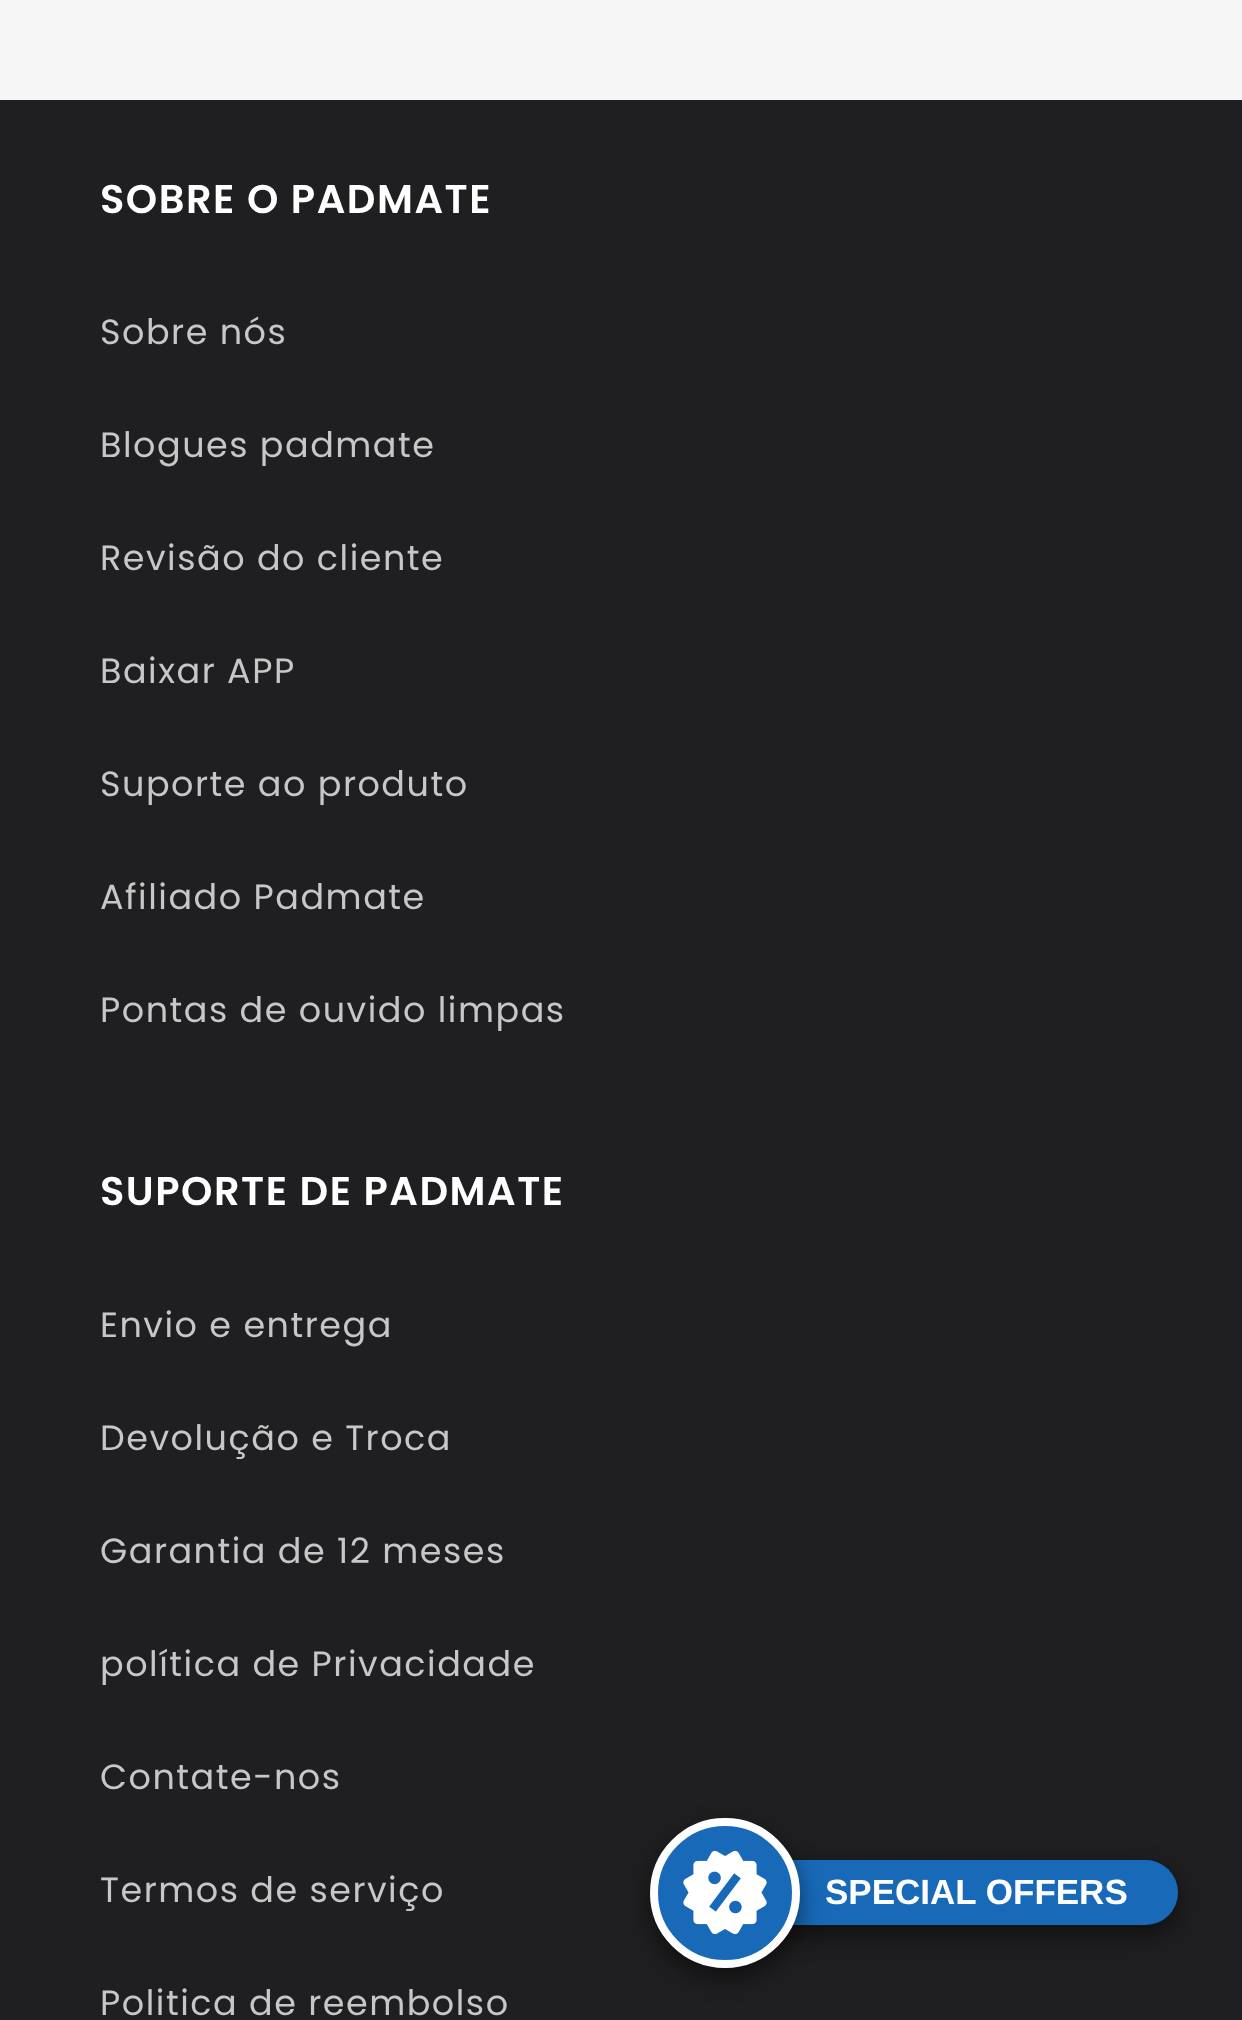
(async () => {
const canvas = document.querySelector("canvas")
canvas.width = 1242
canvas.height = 2020
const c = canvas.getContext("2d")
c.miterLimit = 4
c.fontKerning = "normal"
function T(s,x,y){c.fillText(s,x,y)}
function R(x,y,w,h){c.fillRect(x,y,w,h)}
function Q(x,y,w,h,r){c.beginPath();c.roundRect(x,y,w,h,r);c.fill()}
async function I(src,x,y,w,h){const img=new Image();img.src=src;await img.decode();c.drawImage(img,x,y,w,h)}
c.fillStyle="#f5f5f5"
R(0,0,1242,2020)
c.fillStyle="#1f1f21"
R(0,100,1242,1920)
c.letterSpacing="1.5px"
c.font="600 40px Poppins"
c.fillStyle="#fff"
T("SOBRE O PADMATE",100,213)
c.font="35px Poppins"
c.fillStyle="#c7c7c8"
T("Sobre nós",100,344)
T("Blogues padmate",100,457)
T("Revisão do cliente",100,570)
T("Baixar APP",100,683)
T("Suporte ao produto",100,796)
T("Afiliado Padmate",100,909)
T("Pontas de ouvido limpas",100,1022)
c.font="600 40px Poppins"
c.fillStyle="#fff"
T("SUPORTE DE PADMATE",100,1205)
c.font="35px Poppins"
c.fillStyle="#c7c7c8"
T("Envio e entrega",100,1337)
T("Devolução e Troca",100,1450)
T("Garantia de 12 meses",100,1563)
T("política de Privacidade",100,1676)
T("Contate-nos",100,1789)
T("Termos de serviço",100,1902)
T("Politica de reembolso",100,2015)
c.fillStyle="#00000080"
c.filter="blur(12.5px)"
c.beginPath()
c.roundRect(700,1870,478,65,32.5)
c.fill()
c.filter="none"
c.fillStyle="#186ab9"
Q(700,1860,478,65,32.5)
c.fillStyle="#00000080"
c.filter="blur(12.5px)"
c.beginPath()
c.roundRect(650,1828,150,150,75)
c.fill()
c.filter="none"
c.fillStyle="#186ab9"
c.beginPath()
c.arc(725,1893,71,0,7)
c.fill()
c.strokeStyle="#fff"
c.lineWidth=8
c.stroke()
await I("1.png",683,1850,84,85)
c.letterSpacing="0px"
c.font="bold 35px Liberation Sans"
c.fillStyle="#fff"
T("SPECIAL OFFERS",825,1904)
})()
